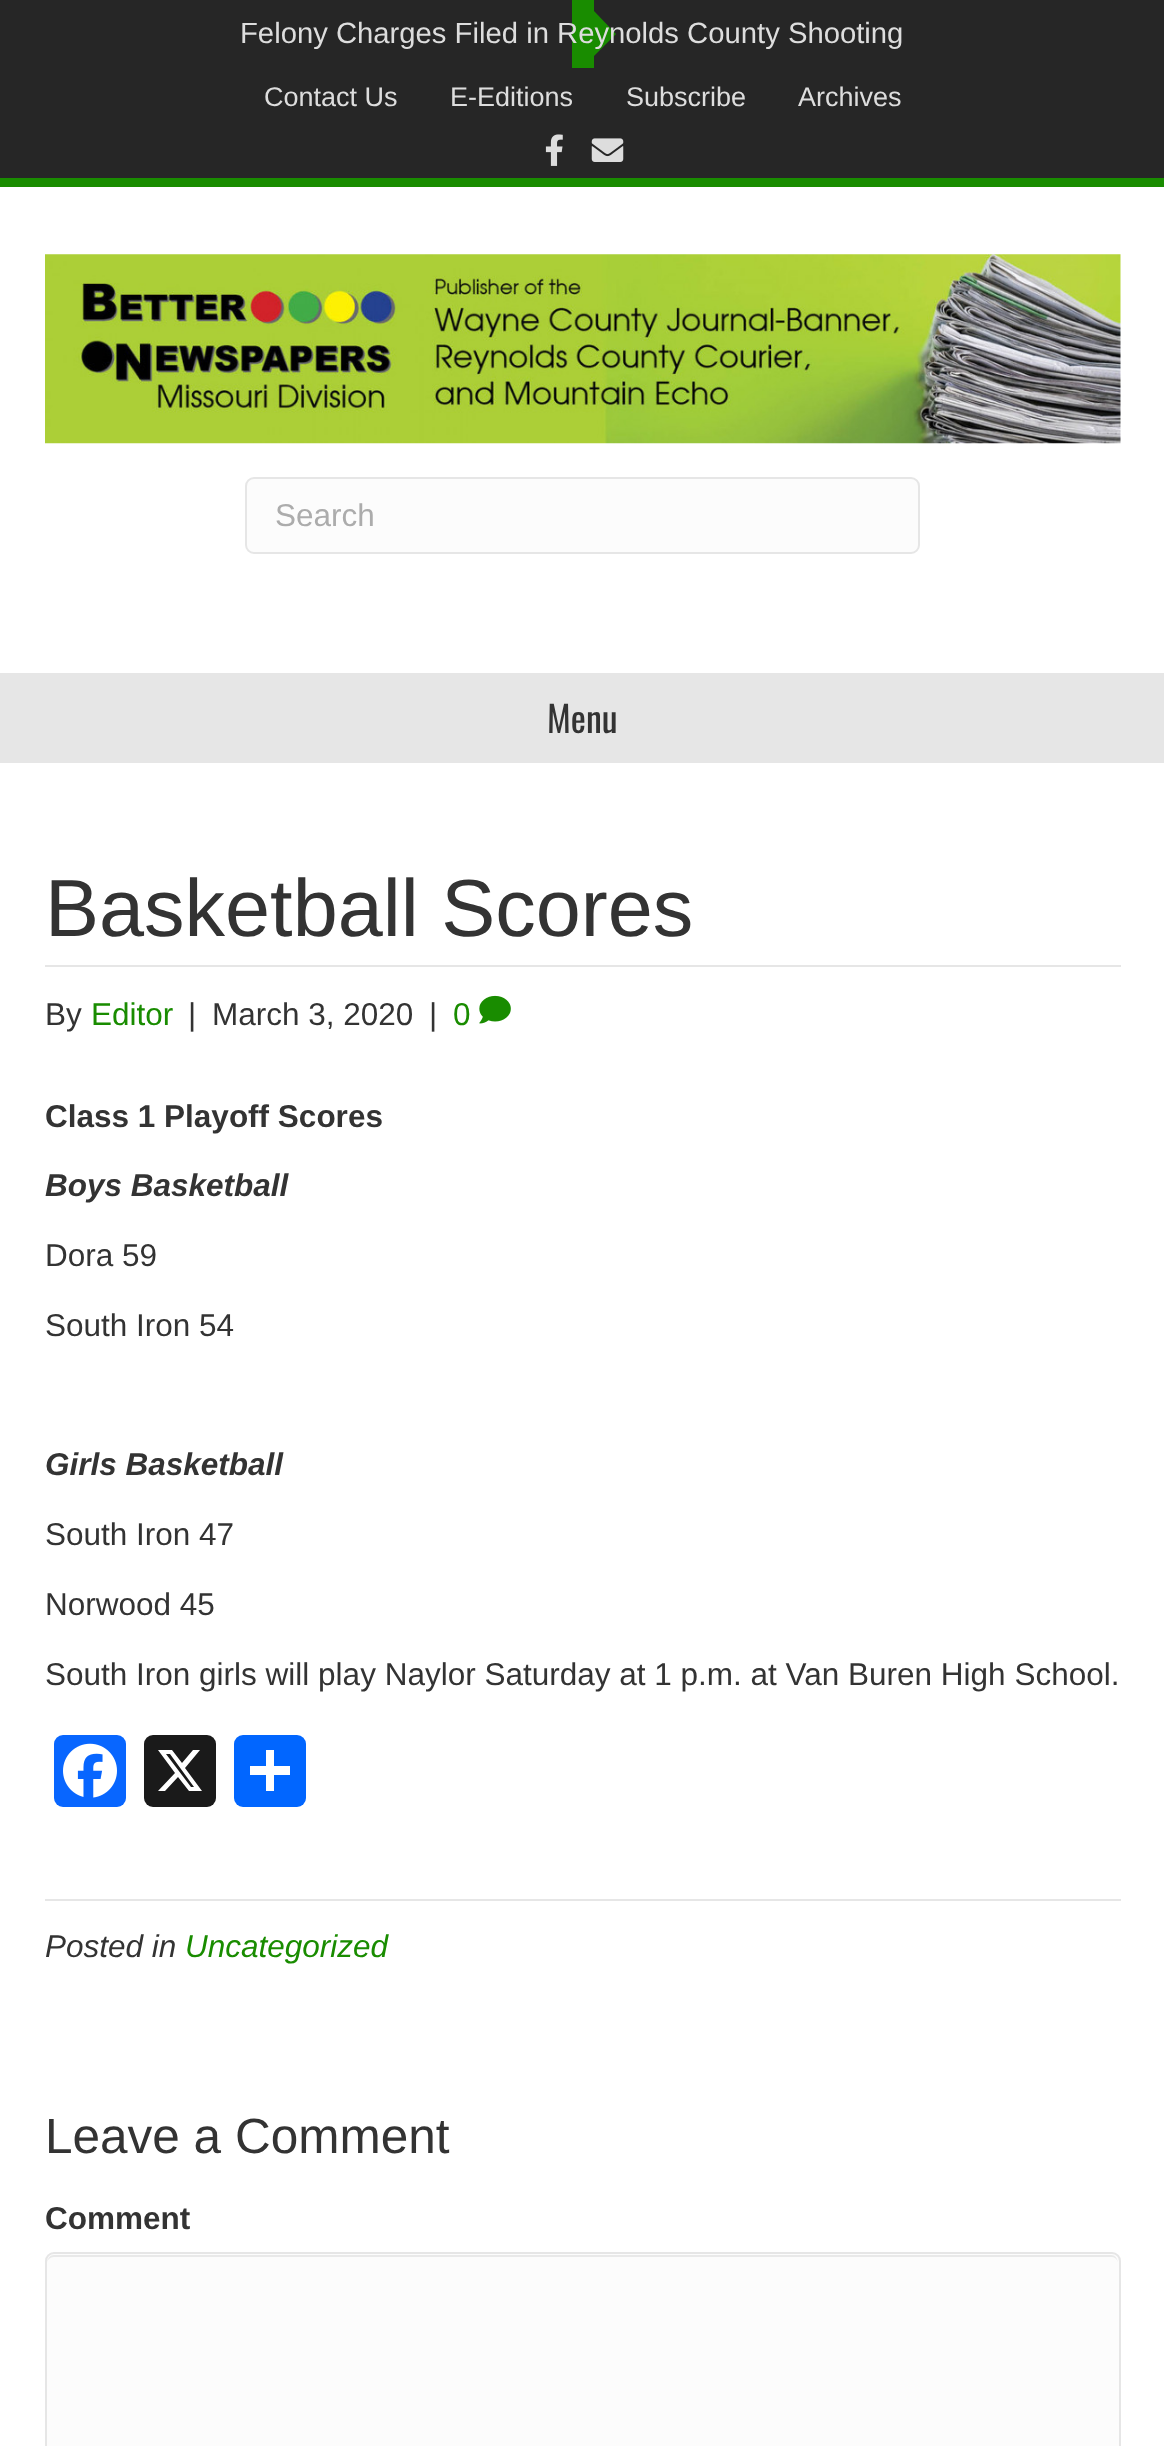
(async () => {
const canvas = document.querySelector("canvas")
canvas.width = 1164
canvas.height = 2446
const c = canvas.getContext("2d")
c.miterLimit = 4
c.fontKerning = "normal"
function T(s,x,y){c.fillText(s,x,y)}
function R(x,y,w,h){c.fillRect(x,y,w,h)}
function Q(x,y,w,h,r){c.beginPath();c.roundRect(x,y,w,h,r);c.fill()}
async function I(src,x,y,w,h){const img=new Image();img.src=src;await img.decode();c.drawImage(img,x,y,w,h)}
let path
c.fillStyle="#262626"
R(0,0,1164,2446)
c.fillStyle="#198c00"
R(0,178,1164,9)
R(572,0,22,68)
path = new Path2D("M594 56v-45l22 23z")
c.fill(path)
c.font="29.25px Liberation Sans"
c.fillStyle="#ddd"
T("Felony Charges Filed in Reynolds County Shooting",240,43)
c.font="27px Liberation Sans"
T("Contact Us",264,106)
T("E-Editions",450,106)
T("Subscribe",626,106)
T("Archives",798,106)
await I("1.png",545,134,18,32)
await I("2.png",591,138,33,24)
c.fillStyle="#fff"
R(0,187,1164,2259)
await I("3.png",45,254,1076,190)
c.fillStyle="#fcfcfc"
c.beginPath()
c.roundRect(246,478,673,75,8)
c.fill()
c.strokeStyle="#e6e6e6"
c.lineWidth=2
c.stroke()
c.font="31.5px Liberation Sans"
c.fillStyle="#acacac"
T("Search",275,526)
c.fillStyle="#e6e6e6"
R(0,673,1164,90)
c.font="36px Oswald"
c.fillStyle="#333"
T("Menu",547,733)
c.fillStyle="#e6e6e6"
R(45,965,1076,2)
c.font="81px Liberation Sans"
c.fillStyle="#333"
T("Basketball Scores",45,936)
c.font="31.5px Liberation Sans"
T("By",45,1025)
c.fillStyle="#198c00"
T("Editor",91,1025)
c.fillStyle="#333"
T("|",188,1025)
T("March 3, 2020",212,1025)
T("|",429,1025)
c.fillStyle="#198c00"
T("0",453,1025)
await I("4.png",479,995,32,29)
c.font="bold 31.5px Liberation Sans"
c.fillStyle="#333"
T("Class 1 Playoff Scores",45,1127)
c.font="italic bold 31.5px Liberation Sans"
T("Boys Basketball",45,1196)
c.font="31.5px Liberation Sans"
T("Dora 59",45,1266)
T("South Iron 54",45,1336)
c.font="italic bold 31.5px Liberation Sans"
T("Girls Basketball",45,1475)
c.font="31.5px Liberation Sans"
T("South Iron 47",45,1545)
T("Norwood 45",45,1615)
T("South Iron girls will play Naylor Saturday at 1 p.m. at Van Buren High School.",45,1685)
c.fillStyle="#0866ff"
Q(54,1735,72,72,9)
await I("5.png",63,1743,54,55)
c.fillStyle="#1a1a1a"
Q(144,1735,72,72,9)
c.fillStyle="#fff"
path = new Path2D("M193 1750h7l-15 18l17 23h-13l-11-14l-13 14h-7l17-18l-17-23h14l10 13zm-2 37h3l-24-33h-4z")
c.fill(path)
c.fillStyle="#0166ff"
Q(234,1735,72,72,9)
c.fillStyle="#fff"
R(266,1750,8,41)
R(250,1766,40,9)
c.fillStyle="#e6e6e6"
R(45,1899,1076,2)
c.font="italic 31.5px Liberation Sans"
c.fillStyle="#333"
T("Posted in",45,1957)
c.fillStyle="#198c00"
T("Uncategorized",185,1957)
c.font="49.5px Liberation Sans"
c.fillStyle="#333"
T("Leave a Comment",45,2153)
c.font="bold 31.5px Liberation Sans"
T("Comment",45,2229)
c.fillStyle="#fcfcfc"
Q(45,2252,1076,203,9)
c.fillStyle="#e9e9e9"
path = new Path2D("M54 2257h1058c3 0 6 3 6 7c0-4-2-9-7-9h-1057c-5 0-7 5-7 9c0-4 3-7 7-7z")
c.fill(path)
c.beginPath()
c.roundRect(46,2253,1074,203,8)
c.stroke()
})()
